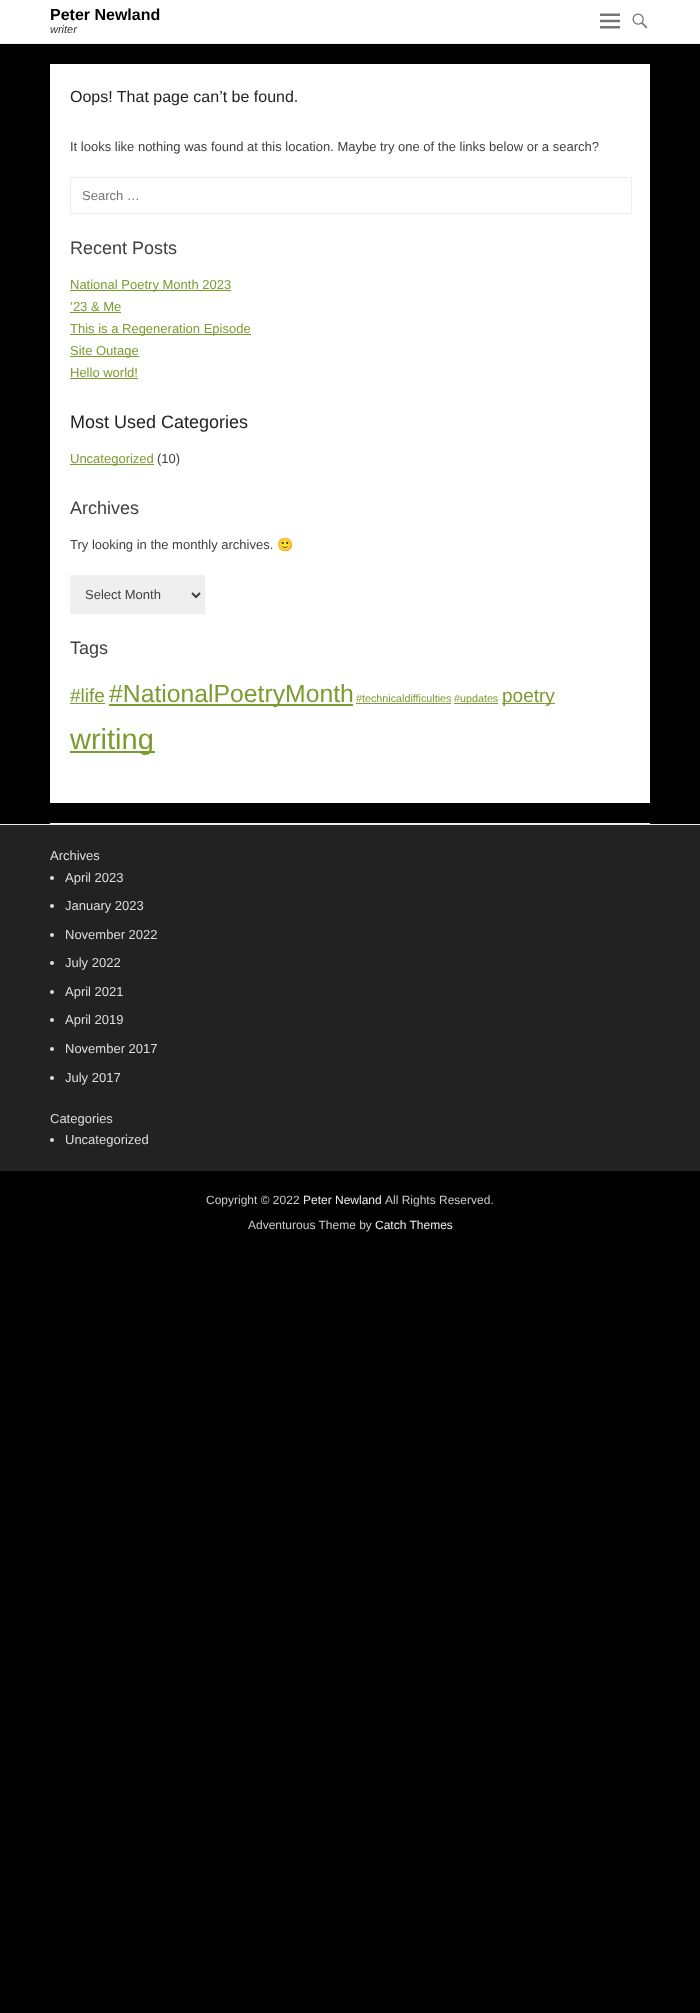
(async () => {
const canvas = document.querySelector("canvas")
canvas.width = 700
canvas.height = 2013
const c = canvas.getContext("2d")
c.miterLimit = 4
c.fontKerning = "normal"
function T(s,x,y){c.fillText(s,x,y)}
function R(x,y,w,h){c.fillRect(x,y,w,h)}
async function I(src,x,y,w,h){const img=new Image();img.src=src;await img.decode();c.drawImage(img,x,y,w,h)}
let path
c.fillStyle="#000"
R(0,0,700,2013)
c.fillStyle="#fff"
R(0,0,700,43)
c.fillStyle="#eee"
R(0,43,700,1)
c.font="bold 16px Liberation Sans"
c.fillStyle="#000"
T("Peter Newland",50,20)
c.font="italic 11px Liberation Sans"
c.fillStyle="#333"
T("writer",50,33)
await I("1.png",600,13,20,16)
await I("2.png",632,13,16,16)
c.fillStyle="#eee"
R(50,823,600,1)
c.fillStyle="#fff"
R(50,64,600,739)
c.font="16px Liberation Sans"
c.fillStyle="#222"
T("Oops! That page can’t be found.",70,102)
c.font="13px Liberation Sans"
c.fillStyle="#404040"
T("It looks like nothing was found at this location. Maybe try one of the links below or a search?",70,151)
c.strokeStyle="#eee"
c.strokeRect(70.5,177.5,561,36)
c.fillStyle="#757575"
T("Search …",82,200)
c.font="18px Liberation Sans"
c.fillStyle="#404040"
T("Recent Posts",70,254)
c.fillStyle="#7c9b30"
R(70,290,161,1)
c.font="13px Liberation Sans"
T("National Poetry Month 2023",70,289)
T("’23 & Me",70,311)
R(70,312,51,1)
R(70,334,181,1)
T("This is a Regeneration Episode",70,333)
R(70,356,69,1)
T("Site Outage",70,355)
T("Hello world!",70,377)
R(70,378,68,1)
c.font="18px Liberation Sans"
c.fillStyle="#222"
T("Most Used Categories",70,428)
c.fillStyle="#7c9b30"
R(70,464,84,1)
c.font="13px Liberation Sans"
T("Uncategorized",70,463)
c.fillStyle="#404040"
T("(10)",157,463)
c.font="18px Liberation Sans"
T("Archives",70,514)
c.font="13px Liberation Sans"
T("Try looking in the monthly archives.",70,549)
c.font="13px Noto Color Emoji"
T("🙂",277,549)
c.fillStyle="#efefef"
R(70,575,135,39)
path = new Path2D("M192 593l4 4l4-4")
c.strokeStyle="#404040"
c.lineWidth=2
c.stroke(path)
c.font="13px Liberation Sans"
c.fillStyle="#404040"
T("Select Month",85,599)
c.font="18px Liberation Sans"
T("Tags",70,654)
c.font="19px Liberation Sans"
c.fillStyle="#7c9b30"
T("#life",70,702)
R(70,703,35,1)
R(109,704,244,2)
c.font="24.75px Liberation Sans"
T("#NationalPoetryMonth",109,702)
c.font="10.75px Liberation Sans"
T("#technicaldifficulties",356,702)
R(356,703,95,1)
R(454,703,44,1)
T("#updates",454,702)
R(502,703,53,1)
c.font="19px Liberation Sans"
T("poetry",502,702)
R(70,751,85,2)
c.font="29px Liberation Sans"
T("writing",70,749)
c.fillStyle="#eee"
R(0,824,700,1)
c.fillStyle="#222"
R(0,825,700,346)
c.font="13px Liberation Sans"
c.fillStyle="#ddd"
T("Archives",50,860)
c.beginPath()
c.arc(52,878,2,0,7)
c.fill()
T("April 2023",65,882)
c.beginPath()
c.arc(52,906,2,0,7)
c.fill()
T("January 2023",65,910)
c.beginPath()
c.arc(52,935,2,0,7)
c.fill()
T("November 2022",65,939)
c.beginPath()
c.arc(52,963,2,0,7)
c.fill()
T("July 2022",65,967)
c.beginPath()
c.arc(52,992,2,0,7)
c.fill()
T("April 2021",65,996)
c.beginPath()
c.arc(52,1020,2,0,7)
c.fill()
T("April 2019",65,1024)
c.beginPath()
c.arc(52,1049,2,0,7)
c.fill()
T("November 2017",65,1053)
c.beginPath()
c.arc(52,1078,2,0,7)
c.fill()
T("July 2017",65,1082)
T("Categories",50,1123)
c.beginPath()
c.arc(52,1140,2,0,7)
c.fill()
T("Uncategorized",65,1144)
c.font="12px Liberation Sans"
c.fillStyle="#ccc"
T("Copyright © 2022",206,1204)
c.fillStyle="#eee"
T("Peter Newland",303,1204)
c.fillStyle="#ccc"
T("All Rights Reserved.",385,1204)
T("Adventurous Theme by",248,1229)
c.fillStyle="#eee"
T("Catch Themes",375,1229)
})()
